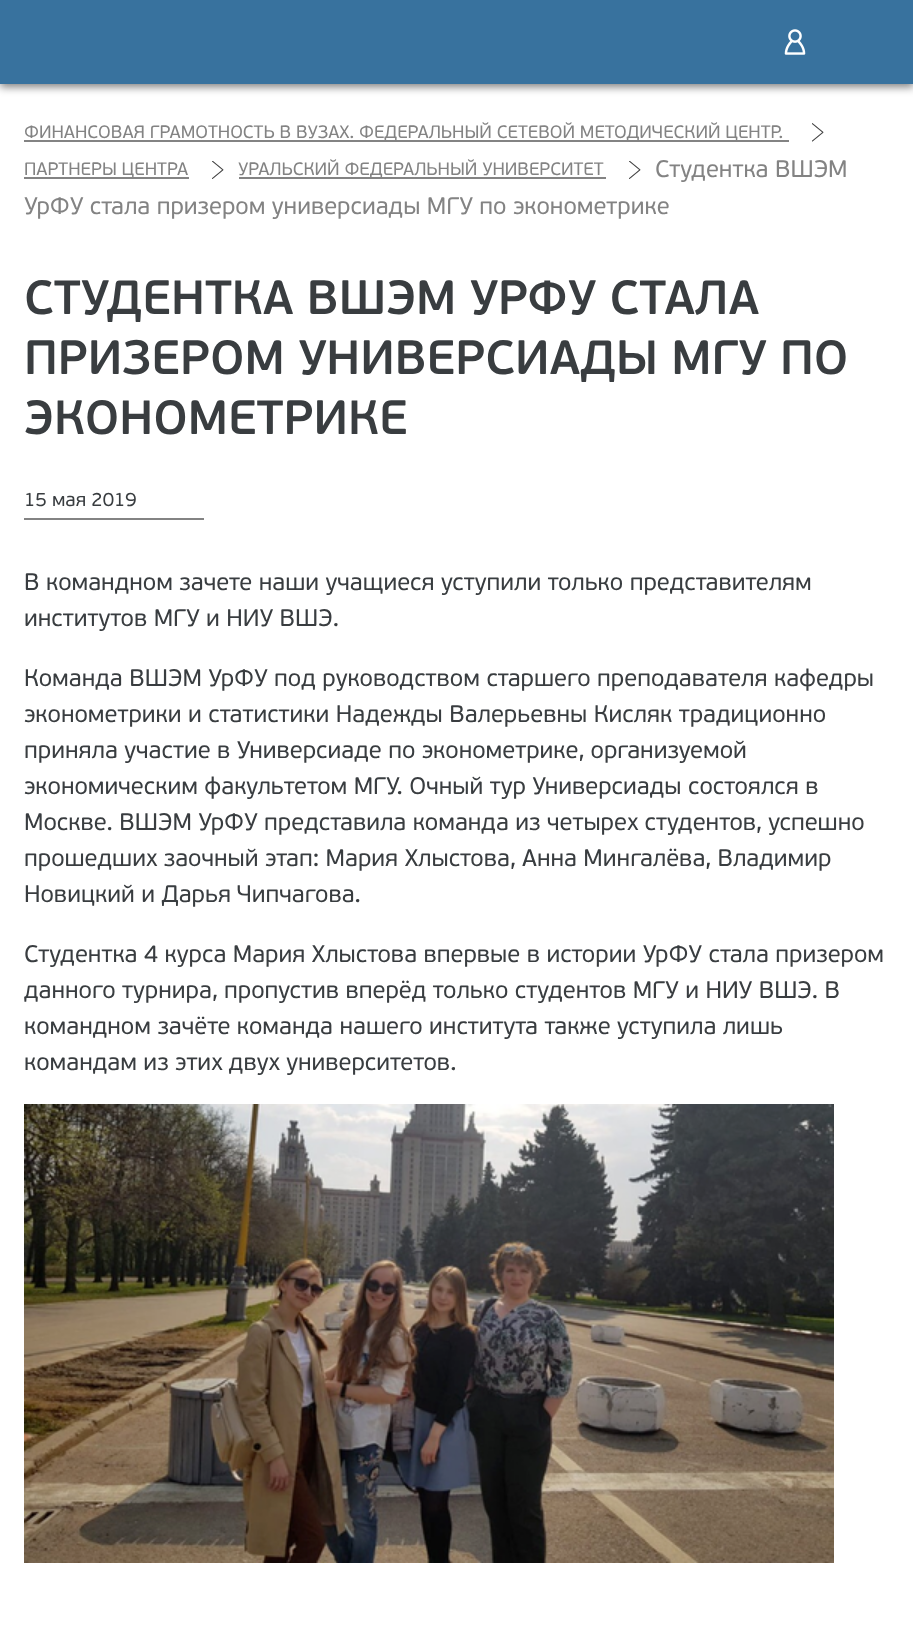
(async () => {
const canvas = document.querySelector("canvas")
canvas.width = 913
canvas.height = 1628
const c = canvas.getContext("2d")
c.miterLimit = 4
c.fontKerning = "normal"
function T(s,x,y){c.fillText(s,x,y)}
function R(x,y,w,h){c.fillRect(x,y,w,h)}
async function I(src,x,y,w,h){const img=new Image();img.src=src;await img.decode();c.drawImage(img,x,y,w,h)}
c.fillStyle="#fff"
R(0,0,913,1628)
c.fillStyle="#00000080"
c.filter="blur(4px)"
c.beginPath()
c.rect(0,3,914,84)
c.fill()
c.filter="none"
c.fillStyle="#38729e"
R(0,0,913,84)
await I("1.png",784,29,22,26)
c.fillStyle="#838383"
R(24,140,765,2)
c.font="18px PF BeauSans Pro"
T("ФИНАНСОВАЯ ГРАМОТНОСТЬ В ВУЗАХ. ФЕДЕРАЛЬНЫЙ СЕТЕВОЙ МЕТОДИЧЕСКИЙ ЦЕНТР.",24,138)
await I("2.png",812,123,12,19)
R(24,177,165,2)
T("ПАРТНЕРЫ ЦЕНТРА",24,175)
await I("3.png",212,161,12,18)
R(239,177,367,2)
T("УРАЛЬСКИЙ ФЕДЕРАЛЬНЫЙ УНИВЕРСИТЕТ",238,175)
await I("3.png",629,161,12,18)
c.font="24px PF BeauSans Pro"
T("Студентка ВШЭМ",655,177)
T("УрФУ стала призером универсиады МГУ по эконометрике",24,214)
c.font="600 48px PF BeauSans Pro"
c.fillStyle="#393d40"
T("СТУДЕНТКА ВШЭМ УРФУ СТАЛА",24,314)
T("ПРИЗЕРОМ УНИВЕРСИАДЫ МГУ ПО",24,374)
T("ЭКОНОМЕТРИКЕ",24,434)
c.font="19.25px PF BeauSans Pro"
T("15 мая 2019",24,506)
c.fillStyle="#838383"
R(24,518,180,2)
c.font="24px PF BeauSans Pro"
c.fillStyle="#393d40"
T("В командном зачете наши учащиеся уступили только представителям",24,590)
T("институтов МГУ и НИУ ВШЭ.",24,626)
T("Команда ВШЭМ УрФУ под руководством старшего преподавателя кафедры",24,686)
T("эконометрики и статистики Надежды Валерьевны Кисляк традиционно",24,722)
T("приняла участие в Универсиаде по эконометрике, организуемой",24,758)
T("экономическим факультетом МГУ. Очный тур Универсиады состоялся в",24,794)
T("Москве. ВШЭМ УрФУ представила команда из четырех студентов, успешно",24,830)
T("прошедших заочный этап: Мария Хлыстова, Анна Мингалёва, Владимир",24,866)
T("Новицкий и Дарья Чипчагова.",24,902)
T("Студентка 4 курса Мария Хлыстова впервые в истории УрФУ стала призером",24,962)
T("данного турнира, пропустив вперёд только студентов МГУ и НИУ ВШЭ. В",24,998)
T("командном зачёте команда нашего института также уступила лишь",24,1034)
T("командам из этих двух университетов.",24,1070)
await I("4.png",24,1104,810,459)
})()
